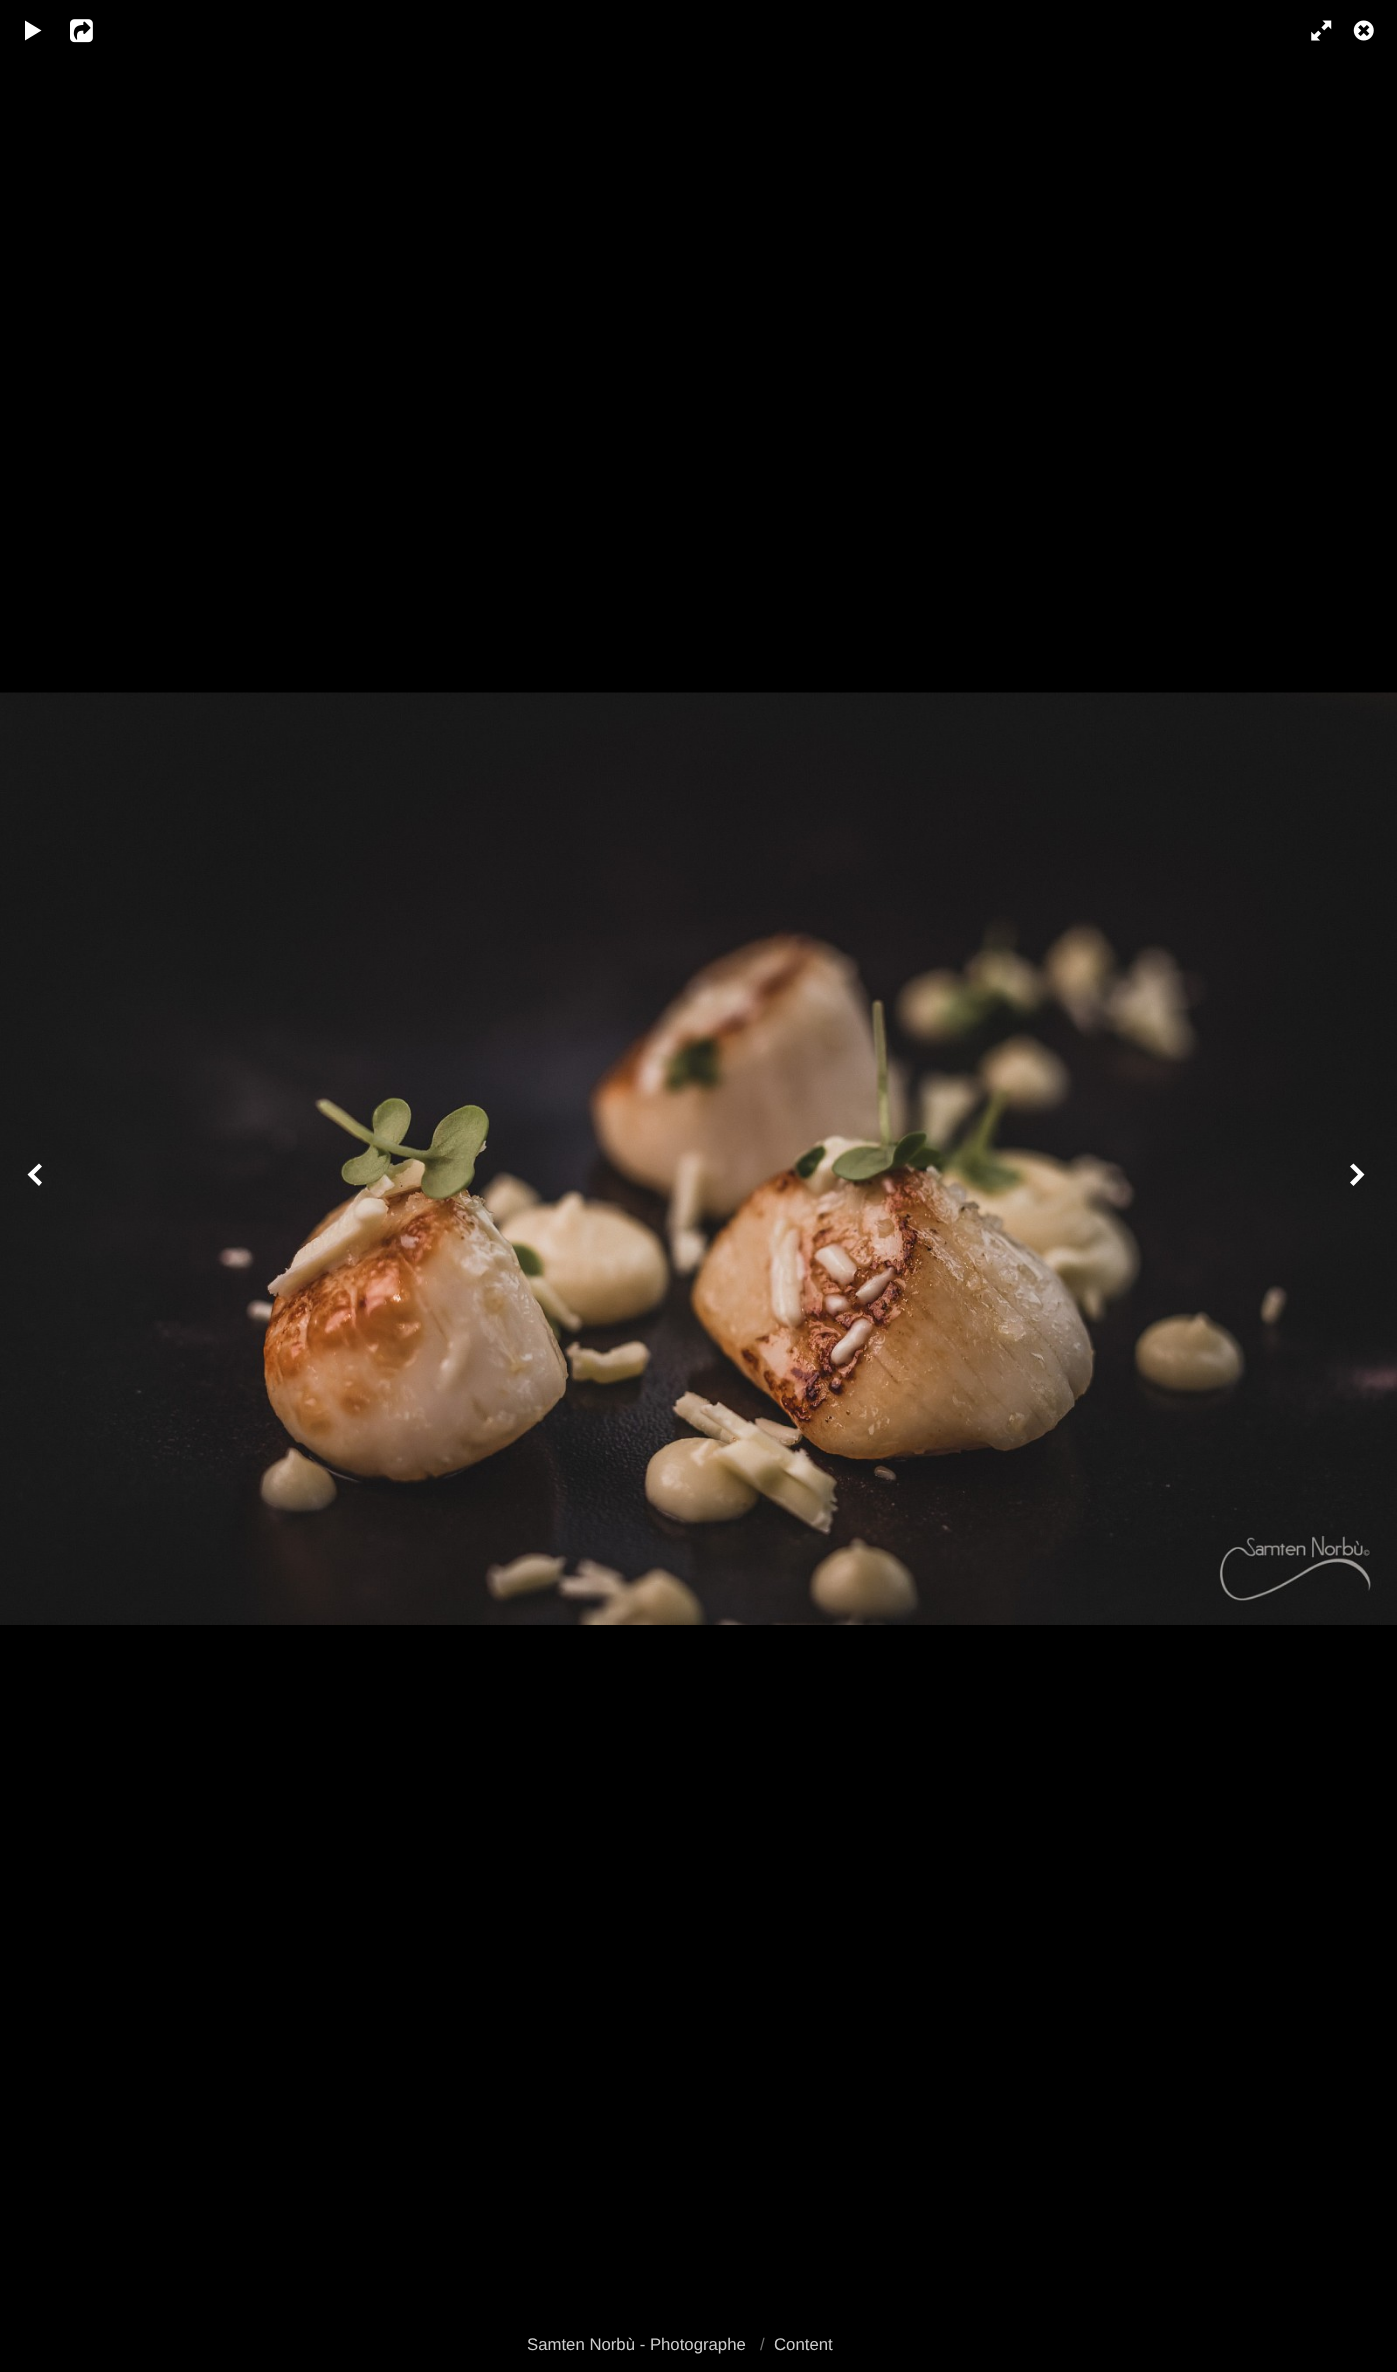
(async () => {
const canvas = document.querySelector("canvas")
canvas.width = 1397
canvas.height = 2372
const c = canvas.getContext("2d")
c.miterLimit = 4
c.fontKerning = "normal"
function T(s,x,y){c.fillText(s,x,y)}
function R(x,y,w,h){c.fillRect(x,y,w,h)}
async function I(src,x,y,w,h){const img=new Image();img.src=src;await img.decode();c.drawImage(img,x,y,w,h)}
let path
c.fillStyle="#000"
R(0,0,1397,2372)
c.fillStyle="#fff"
path = new Path2D("M25 40.5v-20l16.5 10z")
c.fill(path)
await I("1.png",70,19,23,24)
await I("2.png",1311,20,21,21)
await I("3.png",1353,20,21,21)
await I("4.png",0,692,1397,933)
path = new Path2D("M27.5 1174.5l11.5-11l3 3l-8 8l8 8l-3 3.5z")
c.fill(path)
path = new Path2D("M1350 1182.5l8-8l-8-8l3.5-3l11 11l-11 11.5z")
c.fill(path)
c.font="16.75px Liberation Sans"
c.fillStyle="#ccc"
T("Samten Norbù - Photographe",527,2350)
c.fillStyle="#707070"
T("/",760,2350)
c.fillStyle="#ccc"
T("Content",774,2350)
})()
